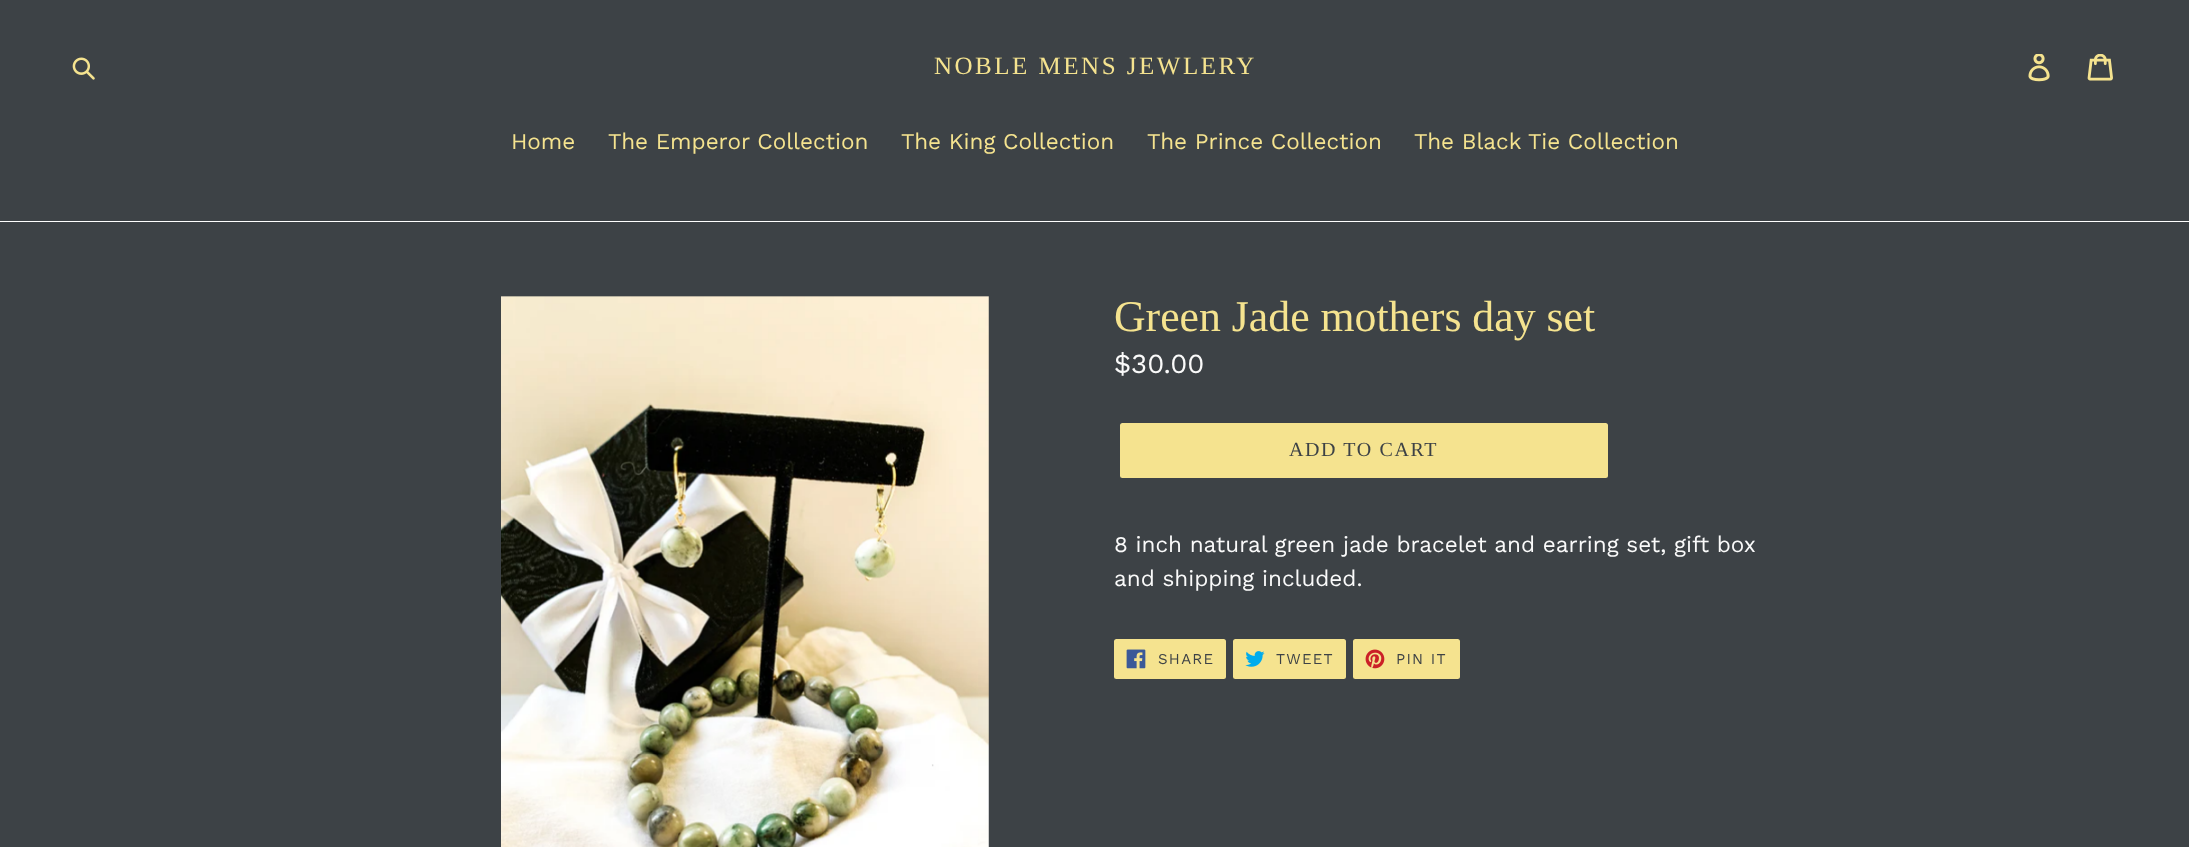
(async () => {
const canvas = document.querySelector("canvas")
canvas.width = 2189
canvas.height = 847
const c = canvas.getContext("2d")
c.miterLimit = 4
c.fontKerning = "normal"
function T(s,x,y){c.fillText(s,x,y)}
function R(x,y,w,h){c.fillRect(x,y,w,h)}
function Q(x,y,w,h,r){c.beginPath();c.roundRect(x,y,w,h,r);c.fill()}
async function I(src,x,y,w,h){const img=new Image();img.src=src;await img.decode();c.drawImage(img,x,y,w,h)}
c.fillStyle="#3d4246"
R(0,0,2189,847)
await I("1.png",72,57,23,23)
c.letterSpacing="2.5px"
c.font="25px Liberation Serif"
c.fillStyle="#f5e38f"
T("NOBLE MENS JEWLERY",934,74)
await I("2.png",2028,54,22,28)
await I("3.png",2087,54,26,27)
c.fillStyle="#fff"
R(0,221,2189,1)
c.letterSpacing="0px"
c.font="22.5px Work Sans"
c.fillStyle="#f5e38f"
T("Home",511,149)
T("The Emperor Collection",608,149)
T("The King Collection",901,149)
T("The Prince Collection",1147,149)
T("The Black Tie Collection",1414,149)
await I("4.png",501,296,488,551)
c.font="43.75px Liberation Serif"
T("Green Jade mothers day set",1114,331)
c.font="27.5px Work Sans"
c.fillStyle="#fafafa"
T("$30.00",1114,373)
c.fillStyle="#f5e38f"
Q(1120,423,488,55,2.5)
c.letterSpacing="1.6px"
c.font="20px Liberation Serif"
c.fillStyle="#3d4246"
T("ADD TO CART",1289,456)
c.letterSpacing="0px"
c.font="22.5px Work Sans"
c.fillStyle="#fafafa"
T("8 inch natural green jade bracelet and earring set, gift box",1114,552)
T("and shipping included.",1114,586)
c.fillStyle="#f5e38f"
Q(1114,639,112,40,2.5)
await I("5.png",1126,649,20,20)
c.letterSpacing="1.25px"
c.font="15px Work Sans"
c.fillStyle="#3d4246"
T("SHARE",1158,664)
c.fillStyle="#f5e38f"
Q(1233,639,113,40,2.5)
await I("6.png",1245,651,20,16)
c.fillStyle="#3d4246"
T("TWEET",1276,664)
c.fillStyle="#f5e38f"
Q(1353,639,107,40,2.5)
await I("7.png",1365,649,20,20)
c.fillStyle="#3d4246"
T("PIN IT",1396,664)
})()
